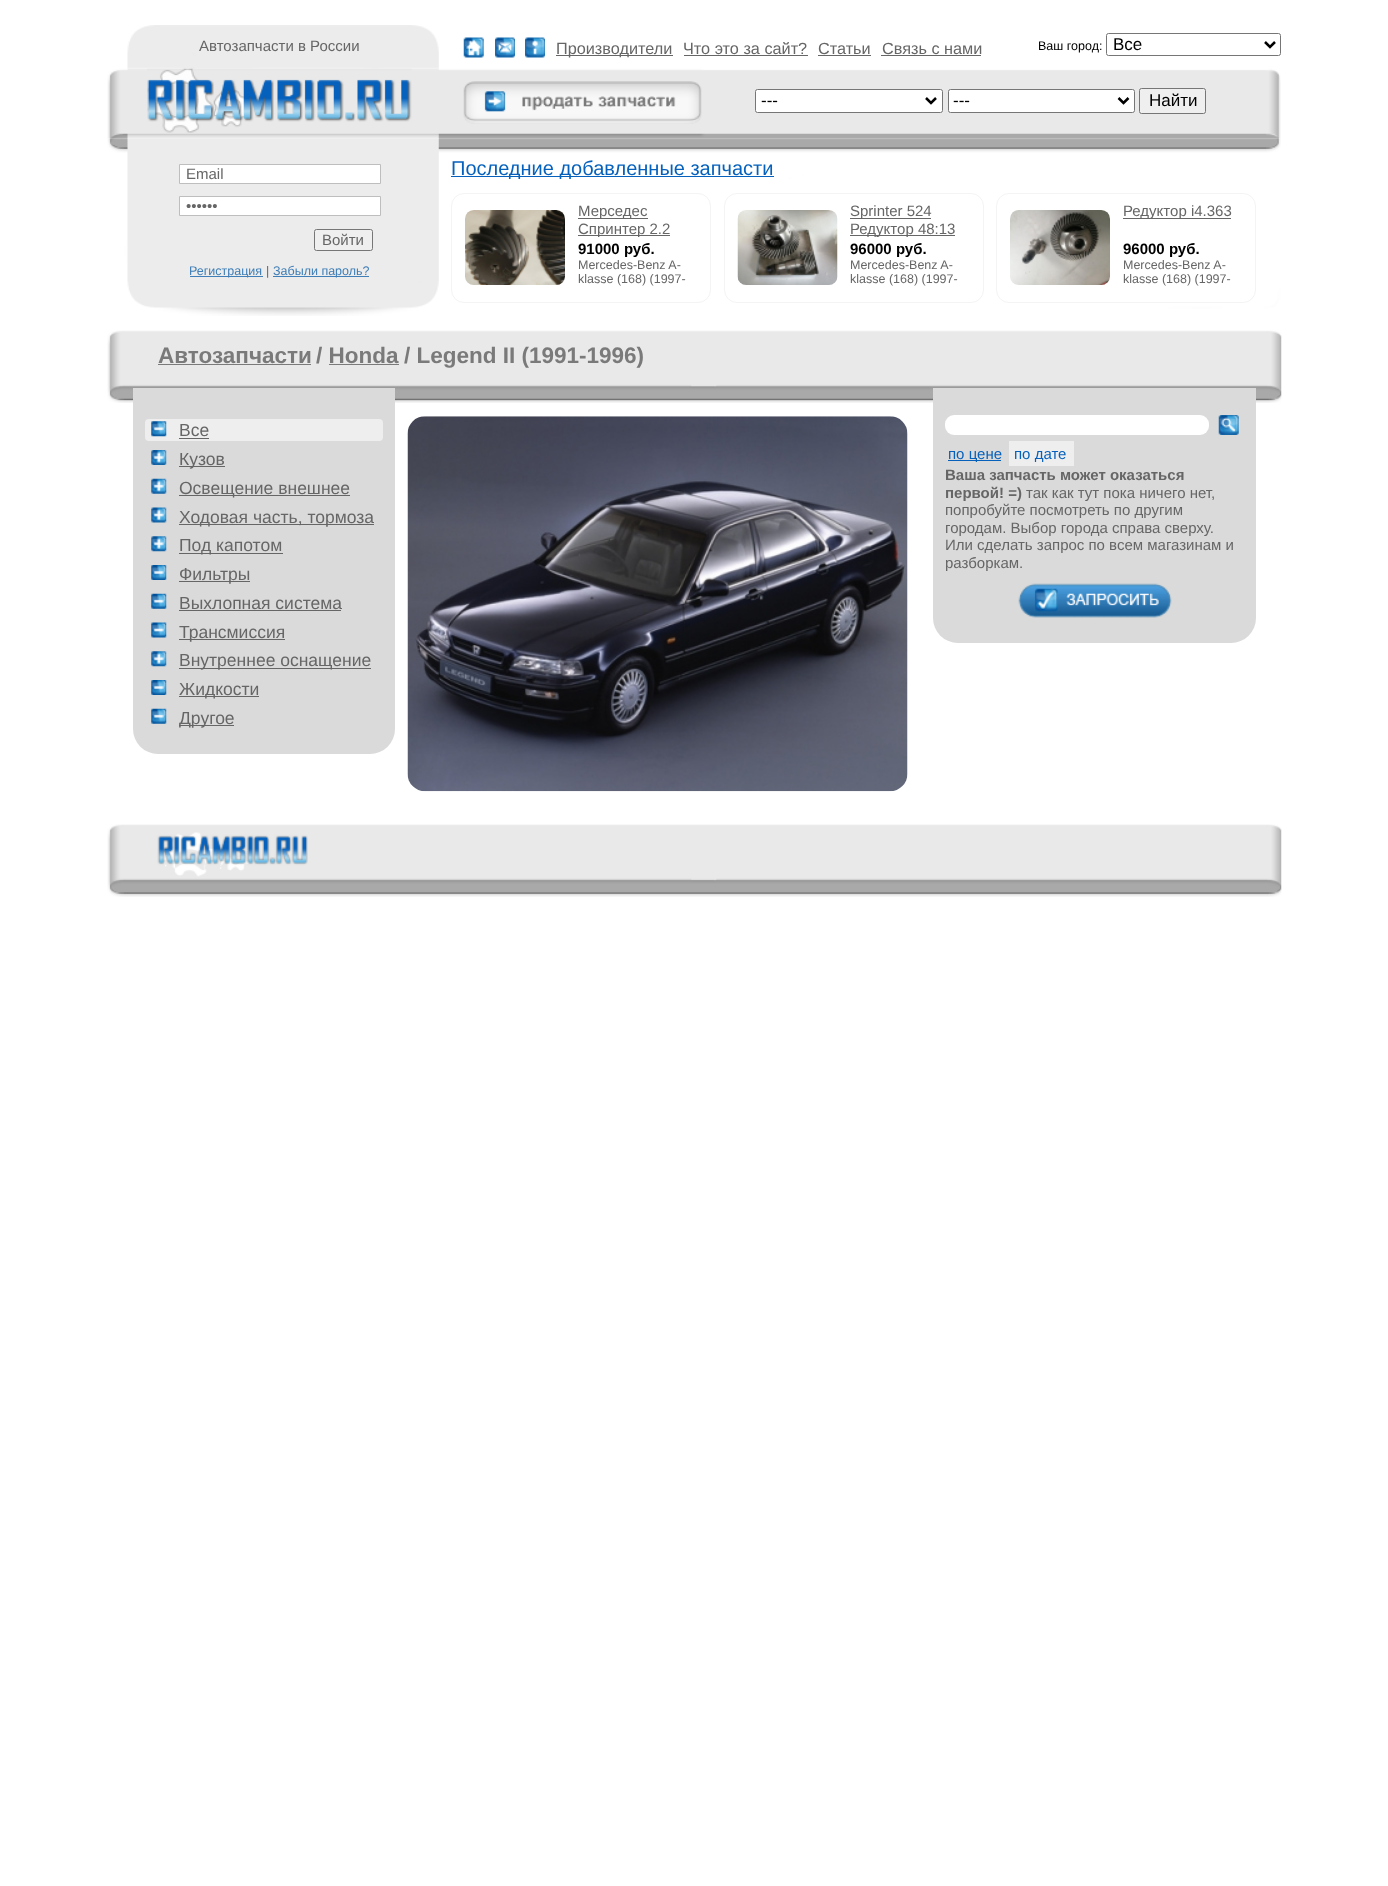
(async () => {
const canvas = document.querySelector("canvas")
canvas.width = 1388
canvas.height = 1886
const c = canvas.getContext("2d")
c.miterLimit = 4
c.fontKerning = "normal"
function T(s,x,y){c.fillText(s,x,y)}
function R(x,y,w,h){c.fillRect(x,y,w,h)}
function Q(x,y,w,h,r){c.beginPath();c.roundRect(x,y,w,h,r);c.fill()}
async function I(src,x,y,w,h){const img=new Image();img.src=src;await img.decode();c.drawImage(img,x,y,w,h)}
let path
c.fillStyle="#fff"
R(0,0,1388,1886)
await I("5.png",107,68,1174,71)
await I("1.png",127,25,312,44)
c.font="15px Liberation Sans"
c.fillStyle="#666"
T("Автозапчасти в России",199,51)
await I("2.png",463,37,21,21)
await I("3.png",495,37,20,21)
await I("4.png",525,37,20,21)
R(556,55,117,1)
c.font="16.25px Liberation Sans"
T("Производители",556,54)
T("Что это за сайт?",683,54)
R(684,55,124,1)
T("Статьи",818,54)
R(818,55,53,1)
T("Связь с нами",882,54)
R(881,55,100,1)
c.font="12.5px Liberation Sans"
c.fillStyle="#000"
T("Ваш город:",1038,50)
c.beginPath()
c.roundRect(1106.5,33.5,174,22,2)
c.strokeStyle="#767676"
c.stroke()
path = new Path2D("M1265 42l5 5l5-5")
c.strokeStyle="#000"
c.lineWidth=2.5
c.stroke(path)
c.font="17px Liberation Sans"
T("Все",1113,50)
await I("6.png",147,68,265,65)
await I("7.png",463,81,239,43)
c.fillStyle="#fff"
c.beginPath()
c.roundRect(755.5,89.5,187,23,2)
c.fill()
c.strokeStyle="#767676"
c.lineWidth=1
c.stroke()
path = new Path2D("M926 98l5 5l5-5")
c.strokeStyle="#000"
c.lineWidth=2.5
c.stroke(path)
c.fillStyle="#000"
T("---",761,106)
c.fillStyle="#fff"
c.beginPath()
c.roundRect(948.5,89.5,186,23,2)
c.fill()
c.strokeStyle="#767676"
c.lineWidth=1
c.stroke()
path = new Path2D("M1118.5 98l5 5l5-5")
c.strokeStyle="#000"
c.lineWidth=2.5
c.stroke(path)
c.fillStyle="#000"
T("---",953,106)
c.fillStyle="#efefef"
c.beginPath()
c.roundRect(1139.5,88.5,66,25,2)
c.fill()
c.strokeStyle="#767676"
c.lineWidth=1
c.stroke()
c.fillStyle="#000"
T("Найти",1149,106)
await I("8.png",107,138,1174,178)
c.fillStyle="#fff"
c.beginPath()
c.rect(179.5,164.5,201,19)
c.fill()
c.strokeStyle="#bebebe"
c.stroke()
c.font="15px Liberation Sans"
c.fillStyle="#666"
T("Email",186,179)
c.fillStyle="#fff"
c.beginPath()
c.rect(179.5,196.5,201,19)
c.fill()
c.stroke()
c.fillStyle="#666"
T("••••••",186,211)
c.fillStyle="#efefef"
c.beginPath()
c.roundRect(314.5,229.5,58,21,2)
c.fill()
c.strokeStyle="#767676"
c.stroke()
c.fillStyle="#666"
T("Войти",322,245)
c.fillStyle="#3f7eb6"
R(190,276,73,1)
c.font="12.5px Liberation Sans"
T("Регистрация",189,275)
c.fillStyle="#666"
T("|",266,275)
c.fillStyle="#3f7eb6"
R(273,276,96,1)
T("Забыли пароль?",273,275)
c.fillStyle="#0561bc"
R(451,176,323,1)
c.font="20px Liberation Sans"
T("Последние добавленные запчасти",451,175)
c.beginPath()
c.roundRect(451.5,193.5,259,109,12.5)
c.strokeStyle="#f4f4f4"
c.stroke()
await I("9.png",465,210,100,75)
c.fillStyle="#666"
R(578,218,70,1)
c.font="15px Liberation Sans"
T("Мерседес",578,216)
R(578,235,92,1)
T("Спринтер 2.2",578,234)
c.font="bold 15px Liberation Sans"
c.fillStyle="#000"
T("91000 руб.",578,254)
c.font="12.5px Liberation Sans"
c.fillStyle="#666"
T("Mercedes-Benz A-",578,269)
T("klasse (168) (1997-",578,283)
c.beginPath()
c.roundRect(724.5,193.5,259,109,12.5)
c.stroke()
await I("10.png",737,210,101,75)
R(850,218,81,1)
c.font="15px Liberation Sans"
T("Sprinter 524",850,216)
R(850,235,105,1)
T("Редуктор 48:13",850,234)
c.font="bold 15px Liberation Sans"
c.fillStyle="#000"
T("96000 руб.",850,254)
c.font="12.5px Liberation Sans"
c.fillStyle="#666"
T("Mercedes-Benz A-",850,269)
T("klasse (168) (1997-",850,283)
c.beginPath()
c.roundRect(996.5,193.5,259,109,12.5)
c.stroke()
await I("11.png",1010,210,100,75)
R(1123,218,108,1)
c.font="15px Liberation Sans"
T("Редуктор i4.363",1123,216)
c.font="bold 15px Liberation Sans"
c.fillStyle="#000"
T("96000 руб.",1123,254)
c.font="12.5px Liberation Sans"
c.fillStyle="#666"
T("Mercedes-Benz A-",1123,269)
T("klasse (168) (1997-",1123,283)
await I("12.png",107,330,1175,73)
c.font="bold 22.5px Liberation Sans"
c.fillStyle="#7a7a7a"
T("Автозапчасти",158,363)
R(158,364,153,1)
T("/ Honda",316,363)
T("/ Legend II (1991-1996)",404,363)
R(329,364,70,1)
c.fillStyle="#dadada"
c.beginPath()
c.roundRect(133,388,262,366,[0,0,25,25])
c.fill()
c.fillStyle="#eee"
Q(145,419,238,22,4)
await I("13.png",151,421,16,16)
c.font="17.5px Liberation Sans"
c.fillStyle="#666"
T("Все",179,436)
R(179,438,30,1)
await I("14.png",151,450,16,15)
R(179,466,46,1)
T("Кузов",179,465)
await I("15.png",151,478,16,16)
R(179,495,171,1)
T("Освещение внешнее",179,494)
await I("16.png",151,507,16,16)
R(179,524,195,1)
T("Ходовая часть, тормоза",179,523)
await I("17.png",151,536,16,16)
R(179,553,104,1)
T("Под капотом",179,551)
await I("18.png",151,565,16,15)
R(179,581,71,1)
T("Фильтры",179,580)
await I("19.png",151,593,16,16)
T("Выхлопная система",179,609)
R(179,610,162,1)
await I("20.png",151,622,16,16)
R(179,639,106,1)
T("Трансмиссия",179,638)
await I("17.png",151,651,16,16)
R(179,668,192,1)
T("Внутреннее оснащение",179,666)
await I("18.png",151,680,16,15)
R(179,696,80,1)
T("Жидкости",179,695)
await I("19.png",151,708,16,16)
R(179,725,55,1)
T("Другое",179,724)
await I("21.png",407,416,501,376)
c.fillStyle="#dadada"
c.beginPath()
c.roundRect(933,388,323,255,[0,0,25,25])
c.fill()
c.fillStyle="#fff"
Q(945,415,264,20,9)
await I("22.png",1218,415,21,20)
c.fillStyle="#0561bc"
R(948,460,53,1)
c.font="15px Liberation Sans"
T("по цене",948,459)
c.fillStyle="#eee"
R(1009,441,65,25)
c.fillStyle="#0561bc"
T("по дате",1014,459)
c.font="bold 15px Liberation Sans"
c.fillStyle="#666"
T("Ваша запчасть может оказаться",945,480)
T("первой! =)",945,498)
c.font="15px Liberation Sans"
T("так как тут пока ничего нет,",1026,498)
T("попробуйте посмотреть по другим",945,515)
T("городам. Выбор города справа сверху.",945,533)
T("Или сделать запрос по всем магазинам и",945,550)
T("разборкам.",945,568)
await I("23.png",1018,583,154,35)
await I("24.png",107,824,1175,73)
await I("25.png",157,832,151,45)
})()
